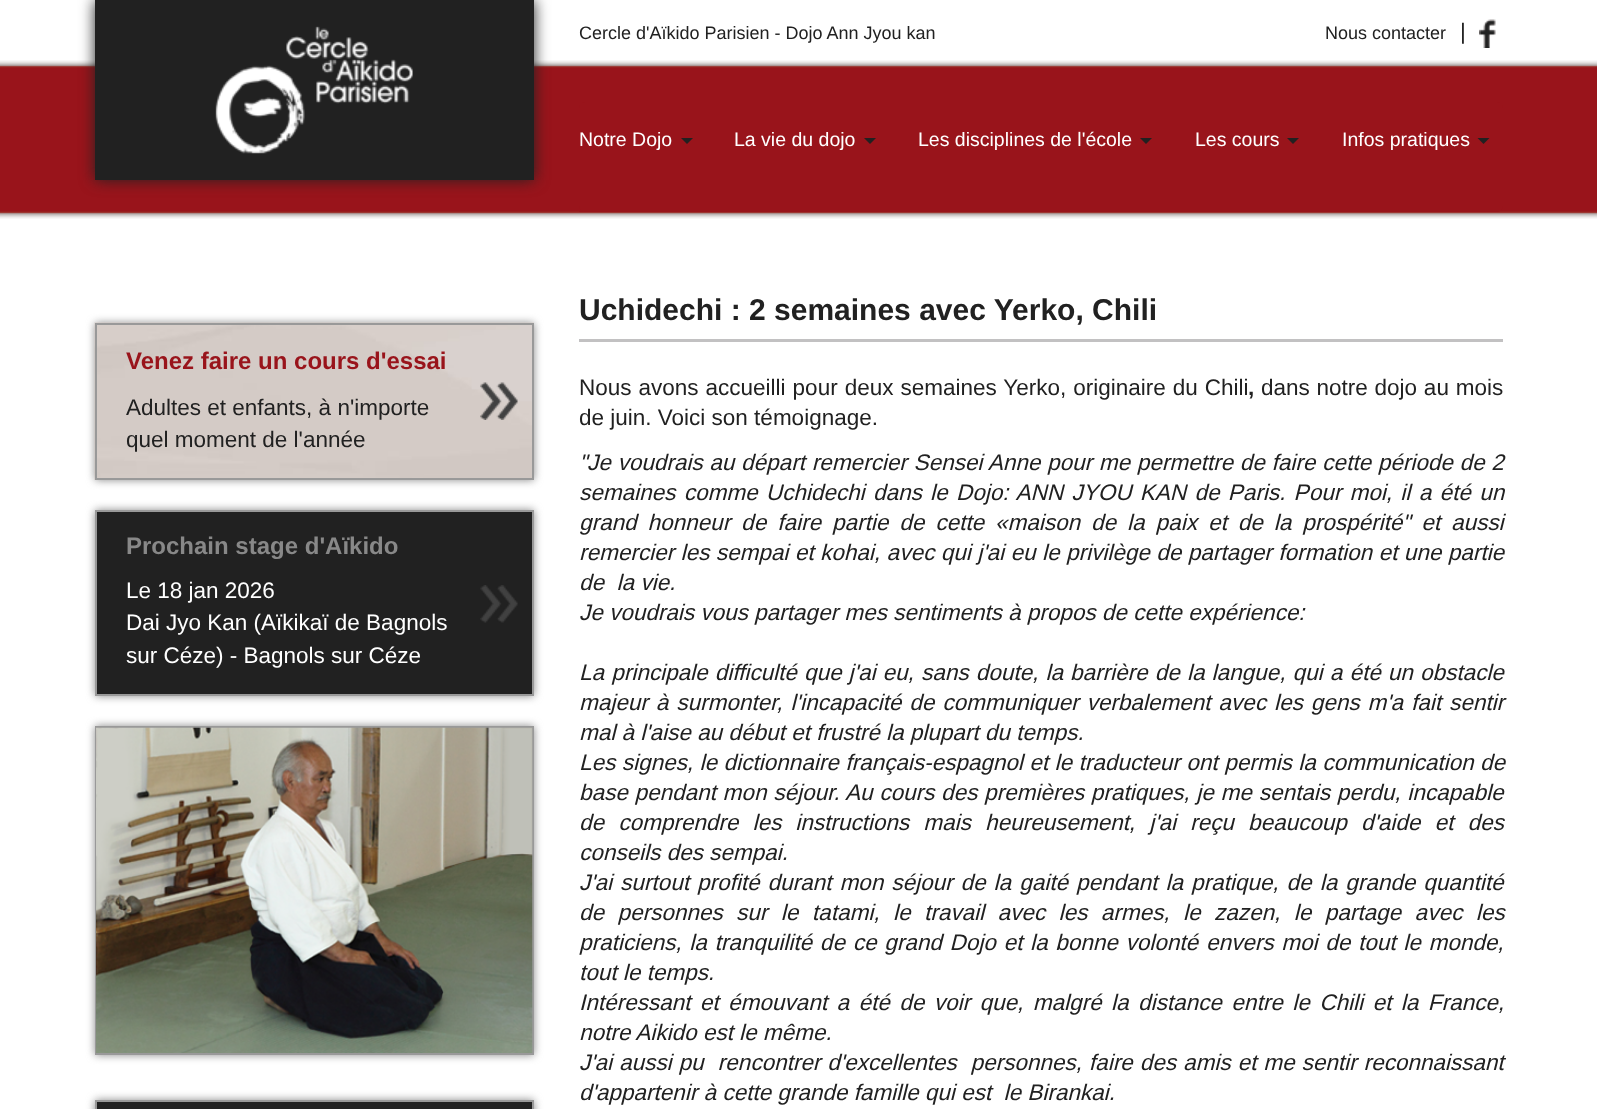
(async () => {
const canvas = document.querySelector("canvas")
canvas.width = 1597
canvas.height = 1109
const c = canvas.getContext("2d")
c.miterLimit = 4
c.fontKerning = "normal"
function T(s,x,y){c.fillText(s,x,y)}
function R(x,y,w,h){c.fillRect(x,y,w,h)}
function Q(x,y,w,h,r){c.beginPath();c.roundRect(x,y,w,h,r);c.fill()}
async function I(src,x,y,w,h){const img=new Image();img.src=src;await img.decode();c.drawImage(img,x,y,w,h)}
let path
c.fillStyle="#fff"
R(0,0,1597,1109)
await I("1.png",0,60,1597,159)
c.fillStyle="#222"
c.filter="blur(7.5px)"
c.beginPath()
c.rect(95,0,439,180)
c.fill()
c.filter="none"
c.fillStyle="#212121"
R(95,0,439,180)
await I("2.png",215,26,198,128)
c.font="18px Arimo"
T("Cercle d'Aïkido Parisien - Dojo Ann Jyou kan",579,39)
T("Nous contacter",1325,39)
c.font="22.5px Arimo"
T("|",1460,39)
await I("3.png",1479,19,17,29)
c.fillStyle="#99141b"
Q(579,102,924,110,6)
R(579,211,4,1)
c.font="19.5px Arimo"
c.fillStyle="#fff"
T("Notre Dojo",579,146)
c.fillStyle="#212121"
path = new Path2D("M681 138h12l-6 6z")
c.fill(path)
c.fillStyle="#fff"
T("La vie du dojo",734,146)
c.fillStyle="#212121"
path = new Path2D("M864 138h12l-6 6z")
c.fill(path)
c.fillStyle="#fff"
T("Les disciplines de l'école",918,146)
c.fillStyle="#212121"
path = new Path2D("M1140 138h12l-6 6z")
c.fill(path)
c.fillStyle="#fff"
T("Les cours",1195,146)
c.fillStyle="#212121"
path = new Path2D("M1287 138h12l-6 6z")
c.fill(path)
c.fillStyle="#fff"
T("Infos pratiques",1342,146)
c.fillStyle="#212121"
path = new Path2D("M1477.5 138h12l-6 6z")
c.fill(path)
c.fillStyle="#888"
c.filter="blur(4px)"
c.beginPath()
c.rect(95,323,439,157)
c.fill()
c.filter="none"
await I("4.png",94,322,440,158)
c.strokeStyle="#999"
c.lineWidth=2
c.strokeRect(96,324,437,155)
c.font="bold 24px Arimo"
c.fillStyle="#99141b"
T("Venez faire un cours d'essai",126,369)
c.font="22.5px Arimo"
c.fillStyle="#212121"
T("Adultes et enfants, à n'importe",126,415)
T("quel moment de l'année",126,447)
await I("5.png",480,382,38,38)
c.fillStyle="#888"
c.filter="blur(4px)"
c.beginPath()
c.rect(95,510,439,186)
c.fill()
c.filter="none"
c.fillStyle="#212121"
c.beginPath()
c.rect(96,511,437,184)
c.fill()
c.stroke()
c.font="bold 24px Arimo"
c.fillStyle="#888"
T("Prochain stage d'Aïkido",126,554)
c.font="22.5px Arimo"
c.fillStyle="#fff"
T("Le 18 jan 2026",126,598)
T("Dai Jyo Kan (Aïkikaï de Bagnols",126,630)
T("sur Céze) - Bagnols sur Céze",126,663)
await I("6.png",480,585,38,38)
c.fillStyle="#888"
c.filter="blur(4px)"
c.beginPath()
c.rect(95,726,439,329)
c.fill()
c.filter="none"
c.strokeRect(96,727,437,327)
await I("7.png",96,727,437,326)
c.filter="blur(4px)"
c.beginPath()
c.rect(95,1100,439,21)
c.fill()
c.filter="none"
c.fillStyle="#212121"
c.beginPath()
c.rect(96,1101,437,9)
c.fill()
c.stroke()
c.fillStyle="#c2c1c2"
R(579,339,924,3)
c.font="bold 30px Arimo"
c.fillStyle="#212121"
T("Uchidechi : 2 semaines avec Yerko, Chili",579,320)
c.wordSpacing="0.75px"
c.font="22.5px Arimo"
T("Nous avons accueilli pour deux semaines Yerko, originaire du Chili",579,395)
c.wordSpacing="0px"
c.font="bold 22.5px Arimo"
T(",",1248,395)
c.wordSpacing="0.5px"
c.font="22.5px Arimo"
T("dans notre dojo au mois",1261,395)
c.wordSpacing="0px"
T("de juin. Voici son témoignage.",579,425)
c.wordSpacing="0.5px"
c.font="italic 22.5px Arimo"
T("\"Je voudrais au départ remercier Sensei Anne pour me permettre de faire cette période de 2",579,470)
c.wordSpacing="2.1px"
T("semaines comme Uchidechi dans le Dojo: ANN JYOU KAN de Paris. Pour moi, il a été un",579,500)
c.wordSpacing="4.75px"
T("grand honneur de faire partie de cette «maison de la paix et de la prospérité\" et aussi",579,530)
c.wordSpacing="0.25px"
T("remercier les sempai et kohai, avec qui j'ai eu le privilège de partager formation et une partie",579,560)
c.wordSpacing="0px"
T("de  la vie.",579,590)
T("Je voudrais vous partager mes sentiments à propos de cette expérience:",579,620)
c.wordSpacing="0.9px"
T("La principale difficulté que j'ai eu, sans doute, la barrière de la langue, qui a été un obstacle",579,680)
c.wordSpacing="1.75px"
T("majeur à surmonter, l'incapacité de communiquer verbalement avec les gens m'a fait sentir",579,710)
c.wordSpacing="0px"
T("mal à l'aise au début et frustré la plupart du temps.",579,740)
c.wordSpacing="0.25px"
T("Les signes, le dictionnaire français-espagnol et le traducteur ont permis la communication de",579,770)
c.wordSpacing="0.5px"
T("base pendant mon séjour. Au cours des premières pratiques, je me sentais perdu, incapable",579,800)
c.wordSpacing="7.9px"
T("de comprendre les instructions mais heureusement, j'ai reçu beaucoup d'aide et des",579,830)
c.wordSpacing="0px"
T("conseils des sempai.",579,860)
c.wordSpacing="1.8px"
T("J'ai surtout profité durant mon séjour de la gaité pendant la pratique, de la grande quantité",579,890)
c.wordSpacing="7.25px"
T("de personnes sur le tatami, le travail avec les armes, le zazen, le partage avec les",579,920)
c.wordSpacing="1.5px"
T("praticiens, la tranquilité de ce grand Dojo et la bonne volonté envers moi de tout le monde,",579,950)
c.wordSpacing="0px"
T("tout le temps.",579,980)
c.wordSpacing="3.25px"
T("Intéressant et émouvant a été de voir que, malgré la distance entre le Chili et la France,",579,1010)
c.wordSpacing="0px"
T("notre Aikido est le même.",579,1040)
c.wordSpacing="0.75px"
T("J'ai aussi pu  rencontrer d'excellentes  personnes, faire des amis et me sentir reconnaissant",579,1070)
c.wordSpacing="0px"
T("d'appartenir à cette grande famille qui est  le Birankai.",579,1100)
})()
